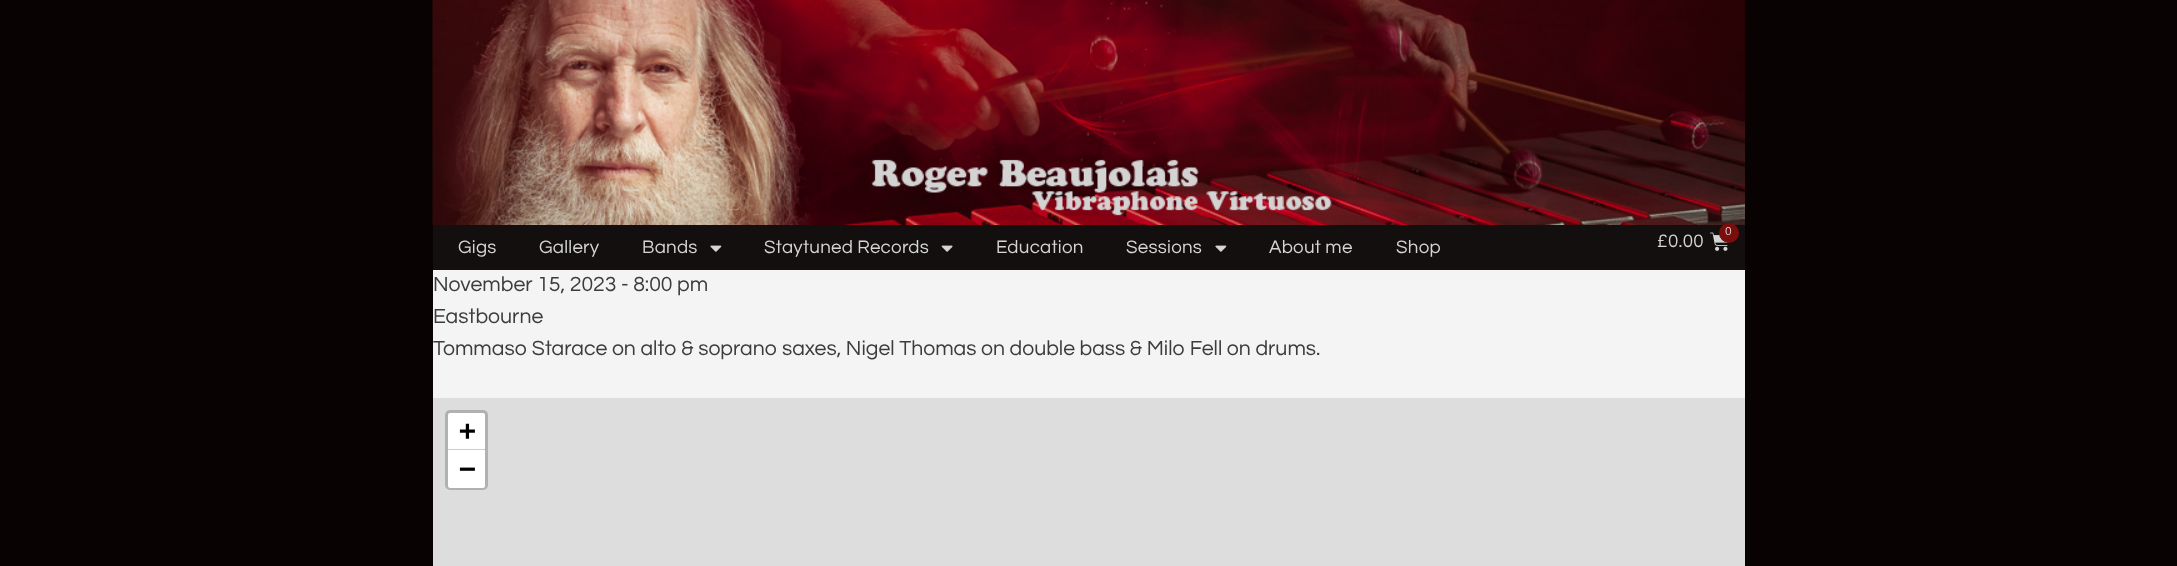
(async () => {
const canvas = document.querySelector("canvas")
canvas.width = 2177
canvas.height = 566
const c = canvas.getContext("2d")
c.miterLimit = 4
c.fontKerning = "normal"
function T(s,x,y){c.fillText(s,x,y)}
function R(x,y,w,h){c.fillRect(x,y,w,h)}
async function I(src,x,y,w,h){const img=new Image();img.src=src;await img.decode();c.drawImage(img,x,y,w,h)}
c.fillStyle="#090202"
R(0,0,2177,566)
await I("1.png",432,0,1313,225)
c.fillStyle="#130f0f"
R(433,225,1312,45)
c.letterSpacing="0.25px"
c.font="18.75px Questrial"
c.fillStyle="#d5d5d5"
T("Gigs",458,253)
T("Gallery",539,253)
T("Bands",642,253)
await I("2.png",710,245,12,7)
T("Staytuned Records",764,253)
await I("3.png",941,245,12,7)
T("Education",996,253)
T("Sessions",1126,253)
await I("2.png",1215,245,12,7)
T("About me",1269,253)
T("Shop",1396,253)
await I("4.png",1710,232,18,19)
c.fillStyle="#7b0d0d"
c.beginPath()
c.arc(1729,233,10,0,7)
c.fill()
c.font="12px Questrial"
c.fillStyle="#d5d5d5"
T("0",1725,235)
c.font="18.75px Questrial"
T("£0.00",1657,247)
c.fillStyle="#f4f4f4"
R(433,270,1312,128)
c.letterSpacing="0px"
c.font="21.25px Questrial"
c.fillStyle="#3c3c3c"
T("November 15, 2023 - 8:00 pm",433,291)
T("Eastbourne",433,323)
T("Tommaso Starace on alto & soprano saxes, Nigel Thomas on double bass & Milo Fell on drums.",433,355)
c.fillStyle="#ddd"
R(433,398,1312,168)
c.beginPath()
c.roundRect(446.5,411.5,40,77,3.5)
c.strokeStyle="#b1b1b1"
c.lineWidth=3
c.stroke()
c.fillStyle="#fff"
c.beginPath()
c.roundRect(448,413,37,37,[2.5,2.5,0,0])
c.fill()
c.fillStyle="#ccc"
R(448,449,37,1)
c.font="bold 28px DejaVu Sans Mono"
c.fillStyle="#000"
T("+",459,440)
c.fillStyle="#fff"
c.beginPath()
c.roundRect(448,450,37,38,[0,0,2.5,2.5])
c.fill()
c.fillStyle="#000"
T("−",459,478)
})()
